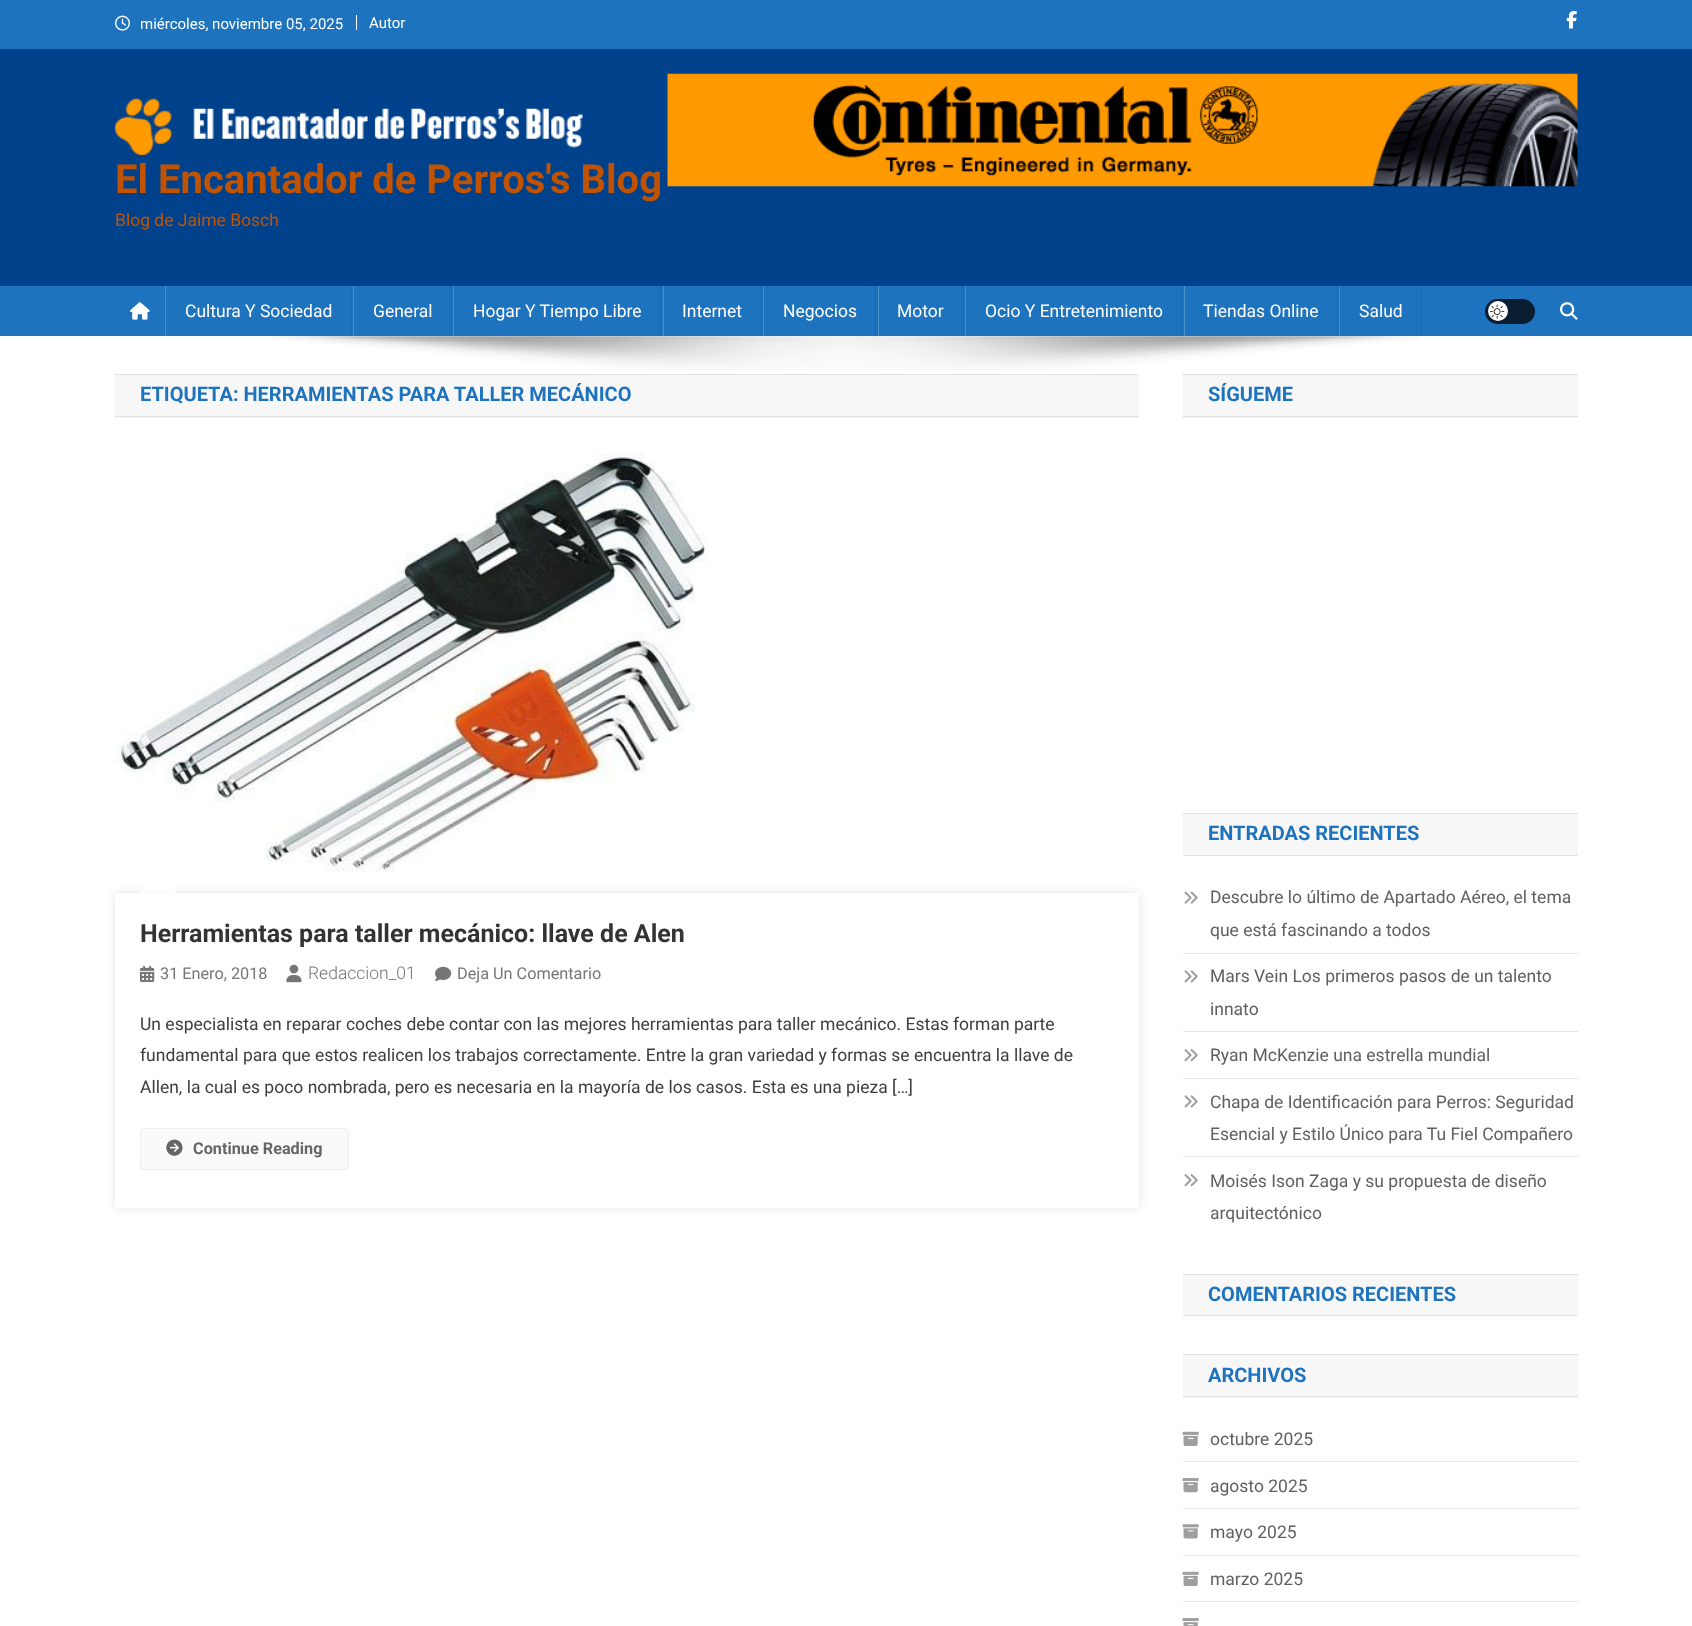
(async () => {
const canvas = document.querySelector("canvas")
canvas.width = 1692
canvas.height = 1626
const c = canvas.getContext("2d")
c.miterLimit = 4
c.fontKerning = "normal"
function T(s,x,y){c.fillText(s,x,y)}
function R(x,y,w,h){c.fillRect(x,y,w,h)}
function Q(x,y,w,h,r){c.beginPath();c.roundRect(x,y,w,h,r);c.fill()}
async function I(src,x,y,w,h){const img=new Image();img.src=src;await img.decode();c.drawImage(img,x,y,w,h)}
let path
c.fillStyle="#fff"
R(0,0,1692,1626)
c.fillStyle="#1e73be"
R(0,0,1692,49)
await I("1.png",115,15,15,16)
c.font="15px Roboto"
c.fillStyle="#fff"
T("miércoles, noviembre 05, 2025",140,29)
R(356,15,1,15)
T("Autor",369,28)
await I("2.png",1566,10,11,19)
c.fillStyle="#00418c"
R(0,49,1692,237)
await I("3.png",667,73,911,114)
await I("4.png",115,98,468,57)
c.font="bold 40px Roboto"
c.fillStyle="#c15300"
T("El Encantador de Perros's Blog",115,193)
c.font="17.5px Roboto"
T("Blog de Jaime Bosch",115,226)
c.fillStyle="#1e73be"
R(0,286,1692,50)
await I("5.png",130,302,20,18)
c.fillStyle="#1c6aaf"
R(351,286,1,50)
c.fillStyle="#4b8fcb"
R(165,286,1,50)
c.fillStyle="#fff"
T("Cultura Y Sociedad",185,317)
c.fillStyle="#1c6aaf"
R(451,286,1,50)
c.fillStyle="#4b8fcb"
R(353,286,1,50)
c.fillStyle="#fff"
T("General",373,317)
c.fillStyle="#1c6aaf"
R(660,286,1,50)
c.fillStyle="#4b8fcb"
R(453,286,1,50)
c.fillStyle="#fff"
T("Hogar Y Tiempo Libre",473,317)
c.fillStyle="#1c6aaf"
R(761,286,1,50)
c.fillStyle="#4b8fcb"
R(663,286,1,50)
c.fillStyle="#fff"
T("Internet",682,317)
c.fillStyle="#1c6aaf"
R(875,286,1,50)
c.fillStyle="#4b8fcb"
R(763,286,1,50)
c.fillStyle="#fff"
T("Negocios",783,317)
c.fillStyle="#1c6aaf"
R(963,286,1,50)
c.fillStyle="#4b8fcb"
R(878,286,1,50)
c.fillStyle="#fff"
T("Motor",897,317)
c.fillStyle="#1c6aaf"
R(1181,286,1,50)
c.fillStyle="#4b8fcb"
R(965,286,1,50)
c.fillStyle="#fff"
T("Ocio Y Entretenimiento",985,317)
c.fillStyle="#1c6aaf"
R(1338,286,1,50)
c.fillStyle="#4b8fcb"
R(1184,286,1,50)
c.fillStyle="#fff"
T("Tiendas Online",1203,317)
c.fillStyle="#1c6aaf"
R(1421,286,1,50)
c.fillStyle="#4b8fcb"
R(1339,286,1,50)
c.fillStyle="#fff"
T("Salud",1359,317)
c.fillStyle="#081d30"
Q(1485,299,50,25,12.5)
c.fillStyle="#fff"
c.beginPath()
c.arc(1498,311,10,0,7)
c.fill()
await I("6.png",1490,304,15,15)
await I("7.png",1560,302,18,18)
await I("8.png",271,336,1149,35)
c.fillStyle="#f7f7f7"
R(115,375,1024,43)
c.fillStyle="#e1e1e1"
R(115,374,1024,1)
R(115,416,1024,1)
c.font="bold 20px Roboto"
c.fillStyle="#1e73be"
T("ETIQUETA: HERRAMIENTAS PARA TALLER MECÁNICO",140,401)
await I("9.png",115,453,593,420)
c.save()
path = new Path2D("M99 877h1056v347h-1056zm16 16h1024v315h-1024z")
c.clip(path,"evenodd")
c.fillStyle="#0000001a"
c.filter="blur(5px)"
c.beginPath()
c.rect(115,893,1024,315)
c.fill()
c.filter="none"
c.restore()
c.fillStyle="#fff"
path = new Path2D("M177.5 892.5h-37.5l19-18.5z")
c.fill(path)
c.font="bold 25px Roboto"
c.fillStyle="#333"
T("Herramientas para taller mecánico: llave de Alen",140,942)
await I("10.png",140,965,15,17)
c.font="16.25px Roboto"
c.fillStyle="#767676"
T("31 Enero, 2018",160,979)
await I("11.png",286,964,16,19)
c.font="300 17.5px Roboto"
T("Redaccion_01",308,979)
await I("12.png",435,966,17,15)
c.font="16.25px Roboto"
T("Deja Un Comentario",457,979)
c.font="17.5px Roboto"
c.fillStyle="#3d3d3d"
T("Un especialista en reparar coches debe contar con las mejores herramientas para taller mecánico. Estas forman parte",140,1030)
T("fundamental para que estos realicen los trabajos correctamente. Entre la gran variedad y formas se encuentra la llave de",140,1061)
T("Allen, la cual es poco nombrada, pero es necesaria en la mayoría de los casos. Esta es una pieza […]",140,1093)
c.fillStyle="#fafafa"
c.beginPath()
c.roundRect(140.5,1128.5,208,41,3.5)
c.fill()
c.strokeStyle="#eee"
c.stroke()
await I("13.png",166,1139,17,17)
c.font="bold 16.25px Roboto"
c.fillStyle="#666"
T("Continue Reading",193,1154)
c.fillStyle="#f7f7f7"
R(1183,375,395,43)
c.fillStyle="#e1e1e1"
R(1183,374,395,1)
R(1183,416,395,1)
c.font="bold 20px Roboto"
c.fillStyle="#1e73be"
T("SÍGUEME",1208,401)
c.fillStyle="#f7f7f7"
R(1183,814,395,41)
c.fillStyle="#e1e1e1"
R(1183,813,395,1)
R(1183,855,395,1)
c.fillStyle="#1e73be"
T("ENTRADAS RECIENTES",1208,840)
c.fillStyle="#e6e6e6"
R(1183,953,395,1)
await I("14.png",1184,891,14,13)
c.font="17.5px Roboto"
c.fillStyle="#5f5f5f"
T("Descubre lo último de Apartado Aéreo, el tema",1210,903)
T("que está fascinando a todos",1210,936)
c.fillStyle="#e6e6e6"
R(1183,1031,395,1)
await I("15.png",1184,970,14,13)
c.fillStyle="#5f5f5f"
T("Mars Vein Los primeros pasos de un talento",1210,982)
T("innato",1210,1015)
c.fillStyle="#e6e6e6"
R(1183,1078,395,1)
await I("16.png",1184,1049,14,13)
c.fillStyle="#5f5f5f"
T("Ryan McKenzie una estrella mundial",1210,1061)
c.fillStyle="#e6e6e6"
R(1183,1156,395,1)
await I("15.png",1184,1095,14,13)
c.fillStyle="#5f5f5f"
T("Chapa de Identificación para Perros: Seguridad",1210,1108)
T("Esencial y Estilo Único para Tu Fiel Compañero",1210,1140)
await I("16.png",1184,1174,14,13)
T("Moisés Ison Zaga y su propuesta de diseño",1210,1187)
T("arquitectónico",1210,1219)
c.fillStyle="#f7f7f7"
R(1183,1275,395,40)
c.fillStyle="#e1e1e1"
R(1183,1274,395,1)
R(1183,1315,395,1)
c.font="bold 20px Roboto"
c.fillStyle="#1e73be"
T("COMENTARIOS RECIENTES",1208,1301)
c.fillStyle="#f7f7f7"
R(1183,1355,395,43)
c.fillStyle="#e1e1e1"
R(1183,1354,395,1)
R(1183,1396,395,1)
c.fillStyle="#1e73be"
T("ARCHIVOS",1208,1382)
c.fillStyle="#e6e6e6"
R(1183,1461,395,1)
await I("17.png",1182,1431,17,15)
c.font="17.5px Roboto"
c.fillStyle="#5f5f5f"
T("octubre 2025",1210,1445)
c.fillStyle="#e6e6e6"
R(1183,1508,395,1)
await I("18.png",1182,1478,17,15)
c.fillStyle="#5f5f5f"
T("agosto 2025",1210,1492)
c.fillStyle="#e6e6e6"
R(1183,1555,395,1)
await I("19.png",1182,1524,17,15)
c.fillStyle="#5f5f5f"
T("mayo 2025",1210,1538)
c.fillStyle="#e6e6e6"
R(1183,1601,395,1)
await I("17.png",1182,1571,17,15)
c.fillStyle="#5f5f5f"
T("marzo 2025",1210,1585)
await I("20.png",1182,1618,17,8)
})()
